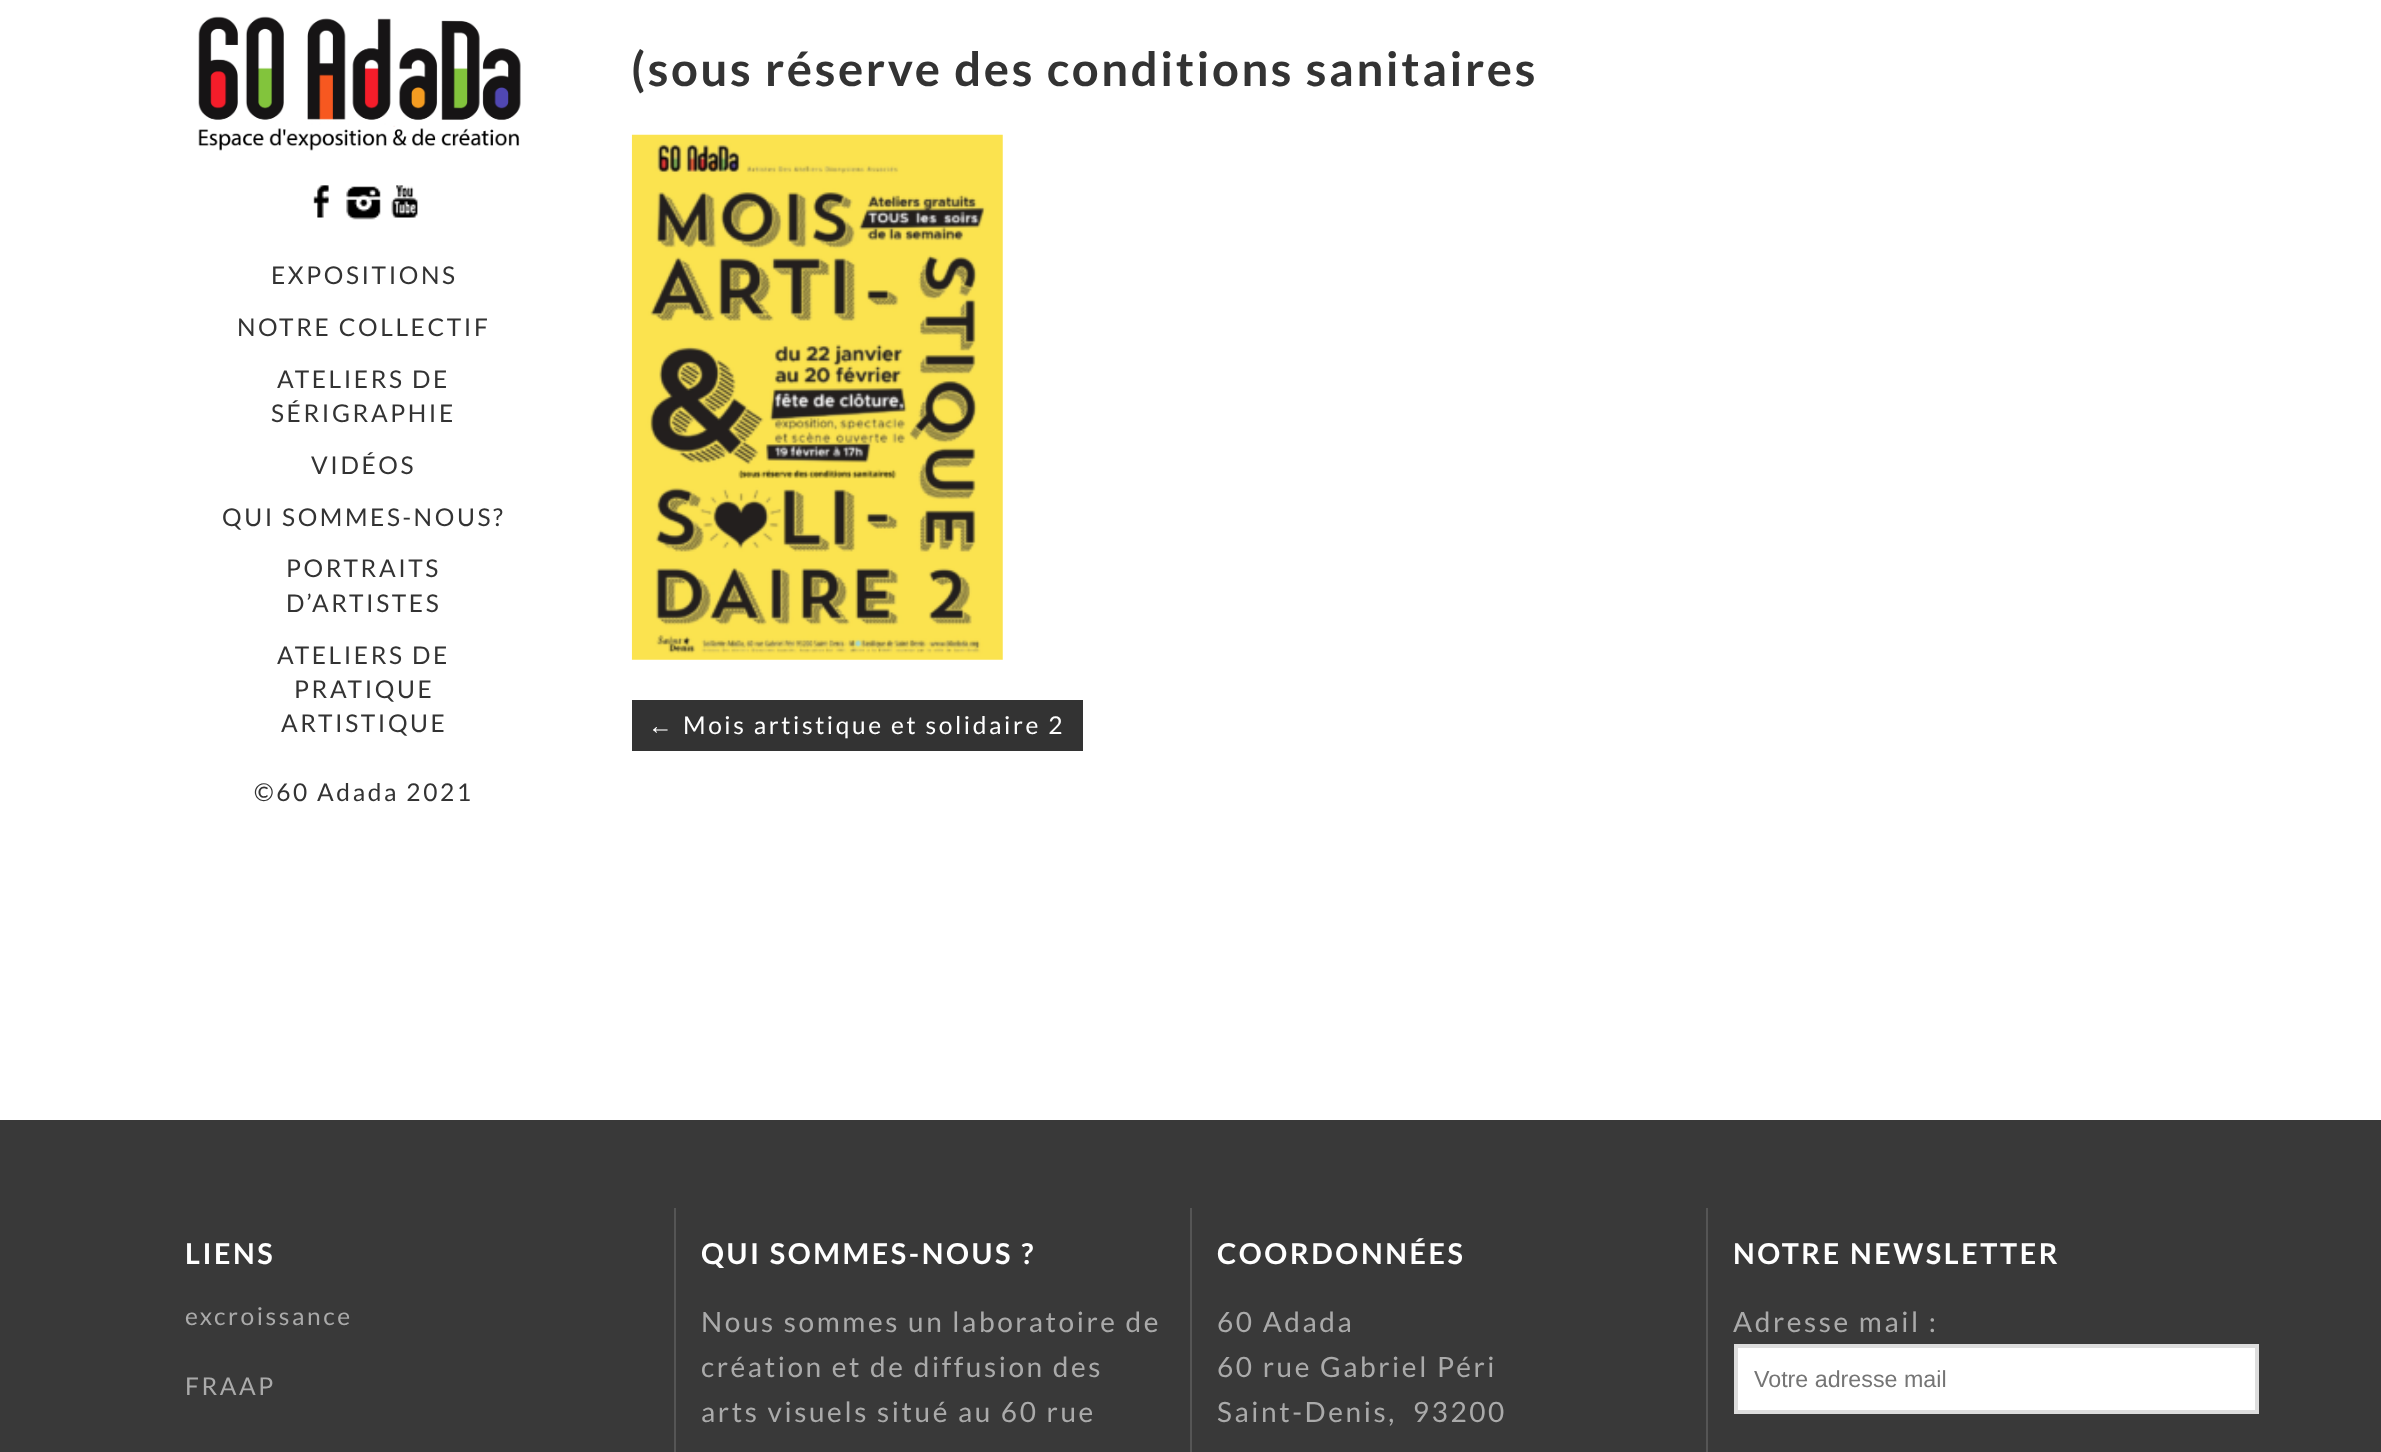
(async () => {
const canvas = document.querySelector("canvas")
canvas.width = 2381
canvas.height = 1452
const c = canvas.getContext("2d")
c.miterLimit = 4
c.fontKerning = "normal"
function T(s,x,y){c.fillText(s,x,y)}
function R(x,y,w,h){c.fillRect(x,y,w,h)}
async function I(src,x,y,w,h){const img=new Image();img.src=src;await img.decode();c.drawImage(img,x,y,w,h)}
c.fillStyle="#fff"
R(0,0,2381,1452)
await I("1.png",198,16,323,135)
await I("2.png",313,185,16,33)
await I("3.png",346,186,35,34)
await I("4.png",391,185,27,33)
c.letterSpacing="2.6px"
c.font="24.5px Lato"
c.fillStyle="#333"
T("EXPOSITIONS",271,284)
T("NOTRE COLLECTIF",237,336)
T("ATELIERS DE",277,388)
T("SÉRIGRAPHIE",271,422)
T("VIDÉOS",311,474)
T("QUI SOMMES-NOUS?",222,526)
T("PORTRAITS",286,577)
T("D’ARTISTES",286,612)
T("ATELIERS DE",277,664)
T("PRATIQUE",294,698)
T("ARTISTIQUE",281,732)
T("©60 Adada 2021",254,801)
c.font="bold 47.25px Lato"
T("(sous réserve des conditions sanitaires",631,86)
await I("5.png",631,134,372,526)
R(632,700,451,51)
c.font="24.5px Liberation Sans"
c.fillStyle="#fff"
T("←",648,734)
c.font="24.5px Lato"
T("Mois artistique et solidaire 2",683,734)
c.fillStyle="#393939"
R(0,1120,2381,332)
c.fillStyle="#555"
R(674,1208,2,244)
c.font="bold 28.7px Lato"
c.fillStyle="#fff"
T("LIENS",185,1264)
c.font="24.5px Lato"
c.fillStyle="#aaa"
T("excroissance",185,1325)
T("FRAAP",185,1395)
c.fillStyle="#555"
R(1190,1208,2,244)
c.font="bold 28.7px Lato"
c.fillStyle="#fff"
T("QUI SOMMES-NOUS ?",701,1264)
c.font="28px Lato"
c.fillStyle="#aaa"
T("Nous sommes un laboratoire de",701,1332)
T("création et de diffusion des",701,1377)
T("arts visuels situé au 60 rue",701,1422)
c.fillStyle="#555"
R(1706,1208,2,244)
c.font="bold 28.7px Lato"
c.fillStyle="#fff"
T("COORDONNÉES",1217,1264)
c.font="28px Lato"
c.fillStyle="#aaa"
T("60 Adada",1217,1332)
T("60 rue Gabriel Péri",1217,1377)
T("Saint-Denis,  93200",1217,1422)
c.font="bold 28.7px Lato"
c.fillStyle="#fff"
T("NOTRE NEWSLETTER",1733,1264)
c.font="28px Lato"
c.fillStyle="#aaa"
T("Adresse mail :",1733,1332)
c.fillStyle="#fff"
c.beginPath()
c.rect(1736,1346,521,66)
c.fill()
c.strokeStyle="#ddd"
c.lineWidth=4
c.stroke()
c.letterSpacing="0px"
c.font="23.25px Liberation Sans"
c.fillStyle="#757575"
T("Votre adresse mail",1754,1387)
})()
